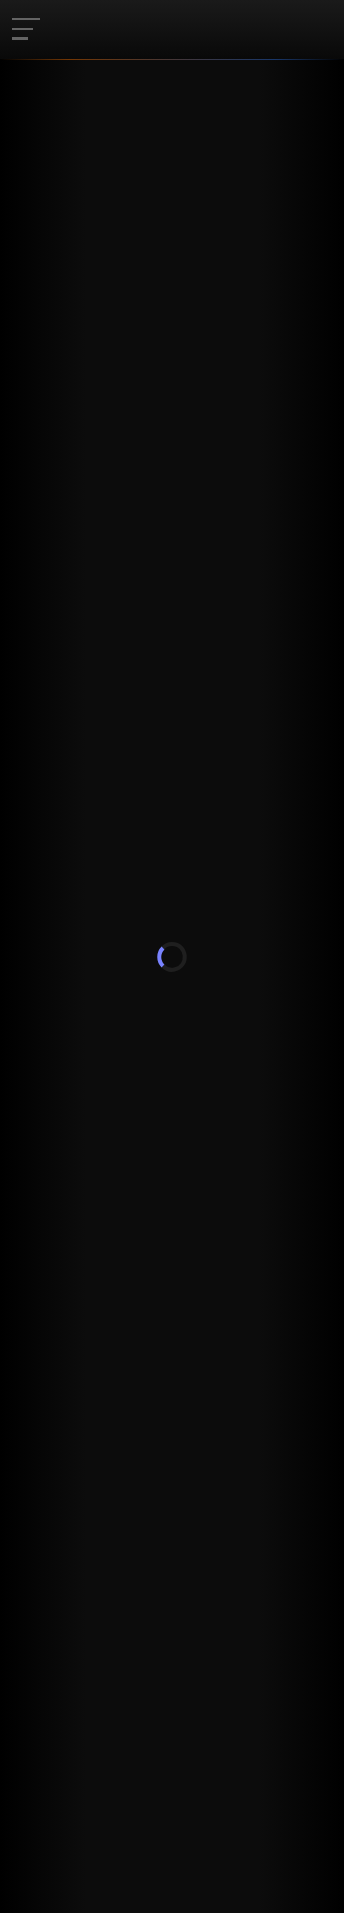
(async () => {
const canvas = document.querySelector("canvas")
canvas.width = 344
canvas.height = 1913
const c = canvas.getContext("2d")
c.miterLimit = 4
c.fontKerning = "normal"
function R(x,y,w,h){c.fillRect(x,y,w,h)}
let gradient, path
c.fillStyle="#fff"
R(0,0,344,1913)
gradient = c.createLinearGradient(0,1047,344,1047)
gradient.addColorStop(0,"#000")
gradient.addColorStop(.25,"#0c0c0c")
gradient.addColorStop(.75,"#0c0c0c")
gradient.addColorStop(1,"#000")
c.fillStyle = gradient
R(0,59,344,1854)
gradient = c.createLinearGradient(172,0,172,59)
gradient.addColorStop(0,"#1a1a1a")
gradient.addColorStop(1,"#090909")
c.fillStyle = gradient
R(0,0,344,59)
c.fillStyle="#646464"
R(12,18,28,2)
R(12,28,21,2)
R(12,37,16,3)
gradient = c.createLinearGradient(344,59,0,60)
gradient.addColorStop(0,"#18366900")
gradient.addColorStop(.2,"#183669")
gradient.addColorStop(.8,"#733603")
gradient.addColorStop(1,"#73360300")
c.fillStyle = gradient
R(0,59,344,1)
path = new Path2D("M163 948c2-2.5 5.5-4 9-4c15.5 0 17.5 22.5 2.5 25.5c-4 1-8.5-.5-11.5-3.5")
c.strokeStyle="#1f1f1f"
c.lineWidth=4
c.stroke(path)
path = new Path2D("M163 966c-5-5-5-13 0-18")
c.strokeStyle="#7983ff"
c.stroke(path)
})()
